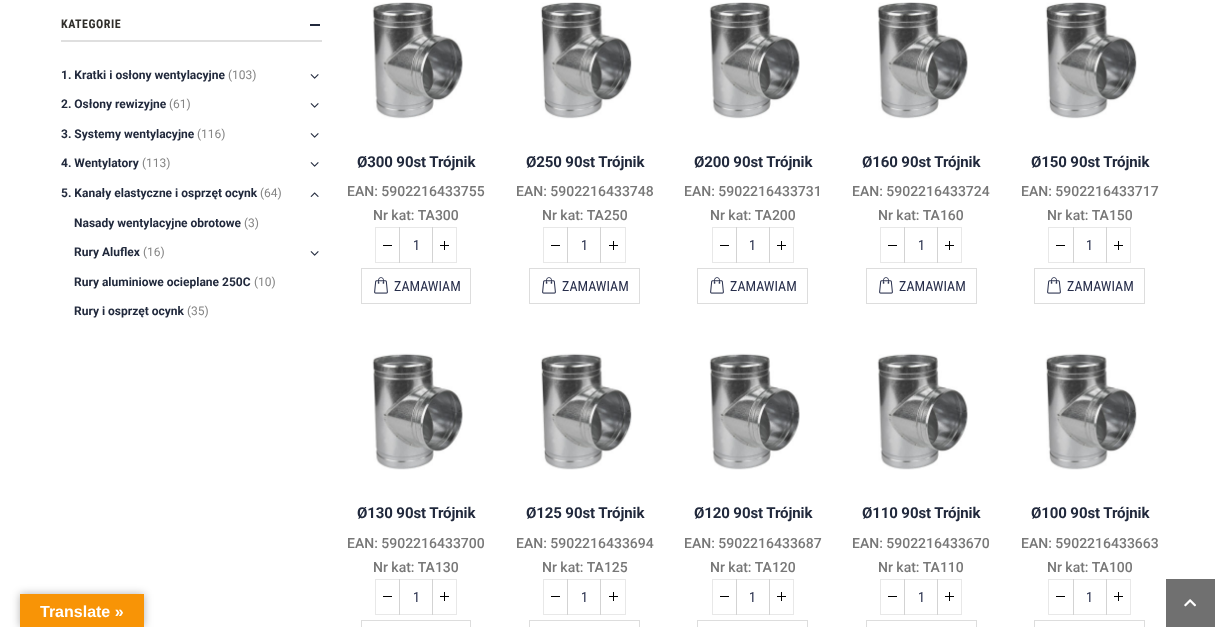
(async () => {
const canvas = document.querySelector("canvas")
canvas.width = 1225
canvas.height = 627
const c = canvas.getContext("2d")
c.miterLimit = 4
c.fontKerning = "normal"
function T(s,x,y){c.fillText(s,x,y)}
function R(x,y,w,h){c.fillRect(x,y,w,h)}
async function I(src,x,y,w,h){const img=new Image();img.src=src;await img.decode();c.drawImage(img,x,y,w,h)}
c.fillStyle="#fff"
R(0,0,1225,627)
c.fillStyle="#dfdfdf"
R(61,40,261,2)
c.letterSpacing="0.5px"
c.font="bold 12px Roboto Condensed"
c.fillStyle="#302e2a"
T("KATEGORIE",61,28)
c.fillStyle="#21293c"
R(310,24,10,2)
c.letterSpacing="0px"
c.font="bold 12px Roboto"
T("1. Kratki i osłony wentylacyjne",61,79)
c.font="12px Roboto"
c.fillStyle="#848484"
T("(103)",228,79)
await I("1.png",310,74,9,5)
c.font="bold 12px Roboto"
c.fillStyle="#21293c"
T("2. Osłony rewizyjne",61,108)
c.font="12px Roboto"
c.fillStyle="#848484"
T("(61)",169,108)
await I("1.png",310,103,9,5)
c.font="bold 12px Roboto"
c.fillStyle="#21293c"
T("3. Systemy wentylacyjne",61,138)
c.font="12px Roboto"
c.fillStyle="#848484"
T("(116)",197,138)
await I("1.png",310,133,9,5)
c.font="bold 12px Roboto"
c.fillStyle="#21293c"
T("4. Wentylatory",61,167)
c.font="12px Roboto"
c.fillStyle="#848484"
T("(113)",142,167)
await I("1.png",310,162,9,5)
c.font="bold 12px Roboto"
c.fillStyle="#21293c"
T("5. Kanały elastyczne i osprzęt ocynk",61,197)
c.font="12px Roboto"
c.fillStyle="#848484"
T("(64)",260,197)
await I("2.png",310,192,9,5)
c.font="bold 12px Roboto"
c.fillStyle="#21293c"
T("Nasady wentylacyjne obrotowe",74,227)
c.font="12px Roboto"
c.fillStyle="#848484"
T("(3)",244,227)
c.font="bold 12px Roboto"
c.fillStyle="#21293c"
T("Rury Aluflex",74,256)
c.font="12px Roboto"
c.fillStyle="#848484"
T("(16)",143,256)
await I("1.png",310,251,9,5)
c.font="bold 12px Roboto"
c.fillStyle="#21293c"
T("Rury aluminiowe ocieplane 250C",74,286)
c.font="12px Roboto"
c.fillStyle="#848484"
T("(10)",254,286)
c.font="bold 12px Roboto"
c.fillStyle="#21293c"
T("Rury i osprzęt ocynk",74,315)
c.font="12px Roboto"
c.fillStyle="#848484"
T("(35)",187,315)
await I("3.png",372,2,91,117)
c.letterSpacing="-0.1px"
c.font="bold 15px Roboto"
c.fillStyle="#21293c"
T("Ø300 90st Trójnik",357,167)
c.letterSpacing="0px"
c.font="500 14px Roboto"
c.fillStyle="#777"
T("EAN: 5902216433755",347,196)
T("Nr kat: TA300",373,220)
c.strokeStyle="#e8e8e8"
c.strokeRect(399.5,227.5,33,35)
c.strokeStyle="#00000017"
c.strokeRect(375.5,227.5,24,35)
c.fillStyle="#000"
R(383,245,9,1)
c.font="14px Roboto Condensed"
c.fillStyle="#272e4b"
T("1",413,250)
c.strokeRect(432.5,227.5,24,35)
c.fillStyle="#000"
R(440,245,9,1)
R(444,241,1,9)
c.strokeStyle="#ddd"
c.strokeRect(361.5,268.5,109,35)
await I("4.png",374,277,14,17)
c.fillStyle="#272e4b"
T("ZAMAWIAM",394,291)
await I("5.png",540,2,92,117)
c.letterSpacing="-0.1px"
c.font="bold 15px Roboto"
c.fillStyle="#21293c"
T("Ø250 90st Trójnik",526,167)
c.letterSpacing="0px"
c.font="500 14px Roboto"
c.fillStyle="#777"
T("EAN: 5902216433748",516,196)
T("Nr kat: TA250",542,220)
c.strokeStyle="#e8e8e8"
c.strokeRect(567.5,227.5,33,35)
c.strokeStyle="#00000017"
c.strokeRect(543.5,227.5,24,35)
c.fillStyle="#000"
R(551,245,9,1)
c.font="14px Roboto Condensed"
c.fillStyle="#272e4b"
T("1",581,250)
c.strokeRect(600.5,227.5,25,35)
c.fillStyle="#000"
R(609,245,9,1)
R(613,241,1,9)
c.strokeStyle="#ddd"
c.strokeRect(529.5,268.5,110,35)
await I("4.png",542,277,14,17)
c.fillStyle="#272e4b"
T("ZAMAWIAM",562,291)
await I("3.png",709,2,91,117)
c.letterSpacing="-0.1px"
c.font="bold 15px Roboto"
c.fillStyle="#21293c"
T("Ø200 90st Trójnik",694,167)
c.letterSpacing="0px"
c.font="500 14px Roboto"
c.fillStyle="#777"
T("EAN: 5902216433731",684,196)
T("Nr kat: TA200",710,220)
c.strokeStyle="#e8e8e8"
c.strokeRect(736.5,227.5,33,35)
c.strokeStyle="#00000017"
c.strokeRect(712.5,227.5,24,35)
c.fillStyle="#000"
R(720,245,9,1)
c.font="14px Roboto Condensed"
c.fillStyle="#272e4b"
T("1",749,250)
c.strokeRect(769.5,227.5,24,35)
c.fillStyle="#000"
R(777,245,9,1)
R(781,241,1,9)
c.strokeStyle="#ddd"
c.strokeRect(697.5,268.5,110,35)
await I("4.png",710,277,14,17)
c.fillStyle="#272e4b"
T("ZAMAWIAM",730,291)
await I("3.png",877,2,91,117)
c.letterSpacing="-0.1px"
c.font="bold 15px Roboto"
c.fillStyle="#21293c"
T("Ø160 90st Trójnik",862,167)
c.letterSpacing="0px"
c.font="500 14px Roboto"
c.fillStyle="#777"
T("EAN: 5902216433724",852,196)
T("Nr kat: TA160",878,220)
c.strokeStyle="#e8e8e8"
c.strokeRect(904.5,227.5,33,35)
c.strokeStyle="#00000017"
c.strokeRect(880.5,227.5,24,35)
c.fillStyle="#000"
R(888,245,9,1)
c.font="14px Roboto Condensed"
c.fillStyle="#272e4b"
T("1",918,250)
c.strokeRect(937.5,227.5,24,35)
c.fillStyle="#000"
R(945,245,9,1)
R(949,241,1,9)
c.strokeStyle="#ddd"
c.strokeRect(866.5,268.5,110,35)
await I("4.png",879,277,14,17)
c.fillStyle="#272e4b"
T("ZAMAWIAM",899,291)
await I("5.png",1045,2,92,117)
c.letterSpacing="-0.1px"
c.font="bold 15px Roboto"
c.fillStyle="#21293c"
T("Ø150 90st Trójnik",1031,167)
c.letterSpacing="0px"
c.font="500 14px Roboto"
c.fillStyle="#777"
T("EAN: 5902216433717",1021,196)
T("Nr kat: TA150",1047,220)
c.strokeStyle="#e8e8e8"
c.strokeRect(1073.5,227.5,33,35)
c.strokeStyle="#00000017"
c.strokeRect(1048.5,227.5,25,35)
c.fillStyle="#000"
R(1056,245,9,1)
c.font="14px Roboto Condensed"
c.fillStyle="#272e4b"
T("1",1086,250)
c.strokeRect(1106.5,227.5,24,35)
c.fillStyle="#000"
R(1114,245,9,1)
R(1118,241,1,9)
c.strokeStyle="#ddd"
c.strokeRect(1034.5,268.5,110,35)
await I("4.png",1047,277,14,17)
c.fillStyle="#272e4b"
T("ZAMAWIAM",1067,291)
await I("6.png",372,353,91,117)
c.letterSpacing="-0.1px"
c.font="bold 15px Roboto"
c.fillStyle="#21293c"
T("Ø130 90st Trójnik",357,518)
c.letterSpacing="0px"
c.font="500 14px Roboto"
c.fillStyle="#777"
T("EAN: 5902216433700",347,548)
T("Nr kat: TA130",373,572)
c.strokeStyle="#e8e8e8"
c.strokeRect(399.5,579.5,33,35)
c.strokeStyle="#00000017"
c.strokeRect(375.5,579.5,24,35)
c.fillStyle="#000"
R(383,596,9,1)
c.font="14px Roboto Condensed"
c.fillStyle="#272e4b"
T("1",413,602)
c.strokeRect(432.5,579.5,24,35)
c.fillStyle="#000"
R(440,596,9,1)
R(444,592,1,9)
c.strokeStyle="#ddd"
c.strokeRect(361.5,620.5,109,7)
await I("7.png",540,353,92,117)
c.letterSpacing="-0.1px"
c.font="bold 15px Roboto"
c.fillStyle="#21293c"
T("Ø125 90st Trójnik",526,518)
c.letterSpacing="0px"
c.font="500 14px Roboto"
c.fillStyle="#777"
T("EAN: 5902216433694",516,548)
T("Nr kat: TA125",542,572)
c.strokeStyle="#e8e8e8"
c.strokeRect(567.5,579.5,33,35)
c.strokeStyle="#00000017"
c.strokeRect(543.5,579.5,24,35)
c.fillStyle="#000"
R(551,596,9,1)
c.font="14px Roboto Condensed"
c.fillStyle="#272e4b"
T("1",581,602)
c.strokeRect(600.5,579.5,25,35)
c.fillStyle="#000"
R(609,596,9,1)
R(613,592,1,9)
c.strokeStyle="#ddd"
c.strokeRect(529.5,620.5,110,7)
await I("6.png",709,353,91,117)
c.letterSpacing="-0.1px"
c.font="bold 15px Roboto"
c.fillStyle="#21293c"
T("Ø120 90st Trójnik",694,518)
c.letterSpacing="0px"
c.font="500 14px Roboto"
c.fillStyle="#777"
T("EAN: 5902216433687",684,548)
T("Nr kat: TA120",710,572)
c.strokeStyle="#e8e8e8"
c.strokeRect(736.5,579.5,33,35)
c.strokeStyle="#00000017"
c.strokeRect(712.5,579.5,24,35)
c.fillStyle="#000"
R(720,596,9,1)
c.font="14px Roboto Condensed"
c.fillStyle="#272e4b"
T("1",749,602)
c.strokeRect(769.5,579.5,24,35)
c.fillStyle="#000"
R(777,596,9,1)
R(781,592,1,9)
c.strokeStyle="#ddd"
c.strokeRect(697.5,620.5,110,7)
await I("6.png",877,353,91,117)
c.letterSpacing="-0.1px"
c.font="bold 15px Roboto"
c.fillStyle="#21293c"
T("Ø110 90st Trójnik",862,518)
c.letterSpacing="0px"
c.font="500 14px Roboto"
c.fillStyle="#777"
T("EAN: 5902216433670",852,548)
T("Nr kat: TA110",878,572)
c.strokeStyle="#e8e8e8"
c.strokeRect(904.5,579.5,33,35)
c.strokeStyle="#00000017"
c.strokeRect(880.5,579.5,24,35)
c.fillStyle="#000"
R(888,596,9,1)
c.font="14px Roboto Condensed"
c.fillStyle="#272e4b"
T("1",918,602)
c.strokeRect(937.5,579.5,24,35)
c.fillStyle="#000"
R(945,596,9,1)
R(949,592,1,9)
c.strokeStyle="#ddd"
c.strokeRect(866.5,620.5,110,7)
await I("7.png",1045,353,92,117)
c.letterSpacing="-0.1px"
c.font="bold 15px Roboto"
c.fillStyle="#21293c"
T("Ø100 90st Trójnik",1031,518)
c.letterSpacing="0px"
c.font="500 14px Roboto"
c.fillStyle="#777"
T("EAN: 5902216433663",1021,548)
T("Nr kat: TA100",1047,572)
c.strokeStyle="#e8e8e8"
c.strokeRect(1073.5,579.5,33,35)
c.strokeStyle="#00000017"
c.strokeRect(1048.5,579.5,25,35)
c.fillStyle="#000"
R(1056,596,9,1)
c.font="14px Roboto Condensed"
c.fillStyle="#272e4b"
T("1",1086,602)
c.strokeRect(1106.5,579.5,24,35)
c.fillStyle="#000"
R(1114,596,9,1)
R(1118,592,1,9)
c.strokeStyle="#ddd"
c.strokeRect(1034.5,620.5,110,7)
c.fillStyle="#707070"
R(1166,579,49,48)
await I("8.png",1184,599,12,8)
c.fillStyle="#0000004d"
c.filter="blur(4.5px)"
c.beginPath()
c.rect(20,594,124,33)
c.fill()
c.filter="none"
c.fillStyle="#f89406"
R(20,594,124,33)
c.font="bold 16px Liberation Sans"
c.fillStyle="#fff"
T("Translate »",40,617)
})()
